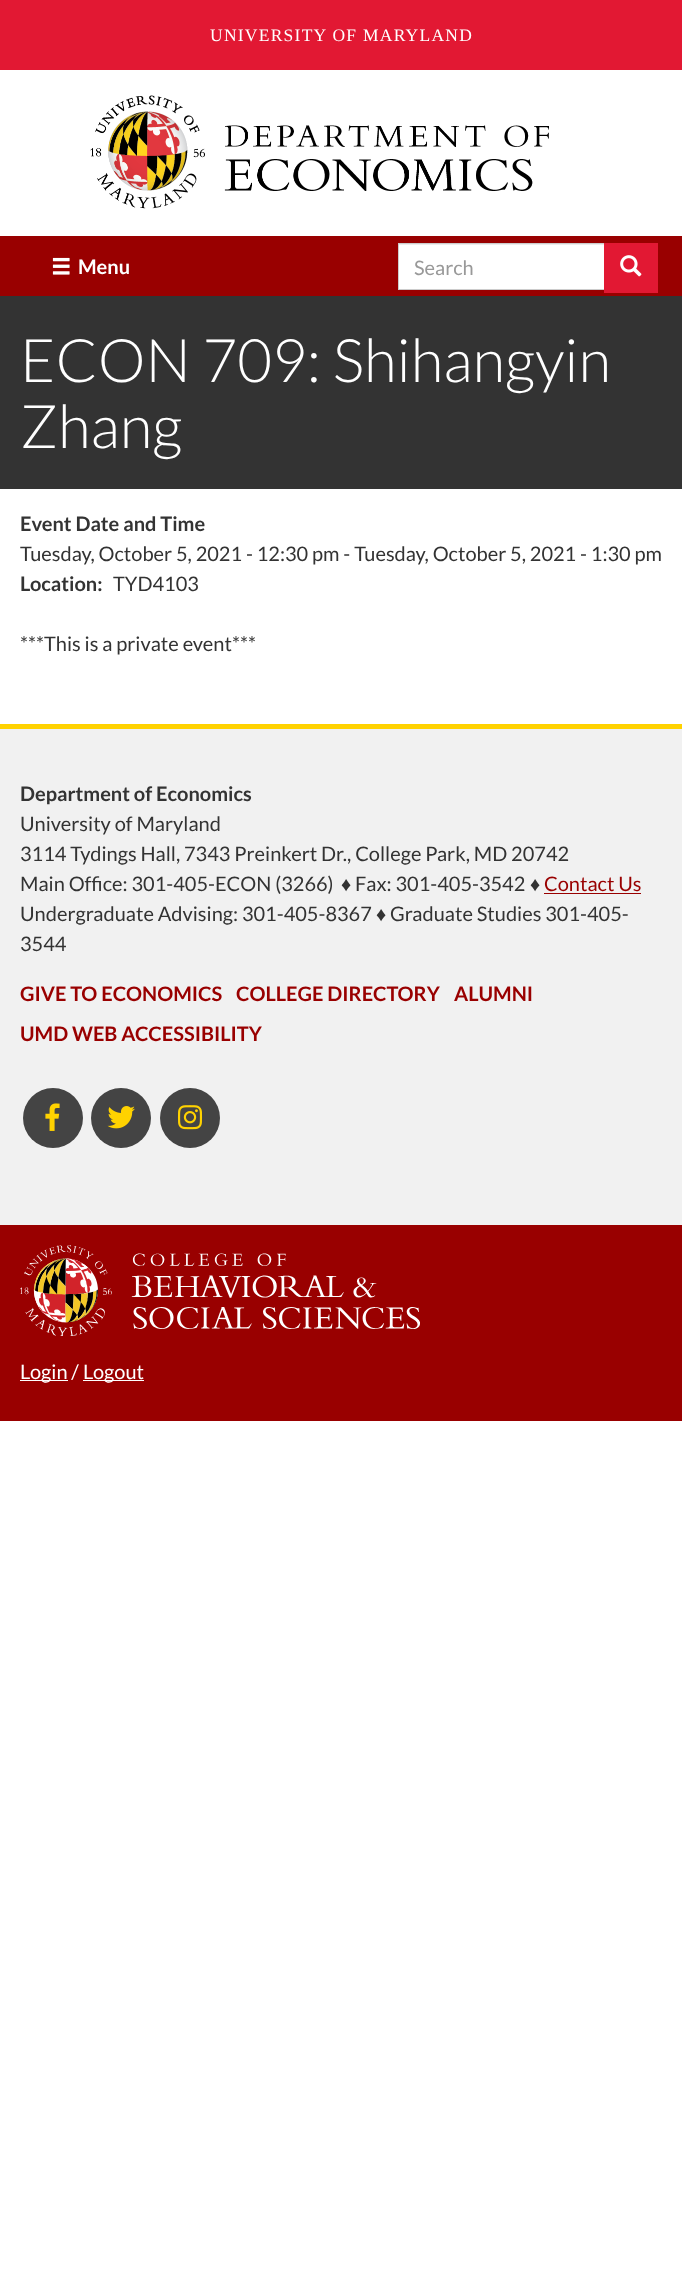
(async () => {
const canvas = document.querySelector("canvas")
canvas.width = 682
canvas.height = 2276
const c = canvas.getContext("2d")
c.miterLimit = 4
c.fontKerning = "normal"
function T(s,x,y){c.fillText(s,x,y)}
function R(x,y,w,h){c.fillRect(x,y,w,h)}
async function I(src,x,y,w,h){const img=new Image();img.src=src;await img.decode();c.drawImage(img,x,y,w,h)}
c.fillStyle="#fff"
R(0,0,682,2276)
c.fillStyle="#e21833"
R(0,0,682,70)
c.letterSpacing="1.25px"
c.font="17.5px Liberation Serif"
c.fillStyle="#fff"
T("UNIVERSITY OF MARYLAND",210,41)
await I("1.png",90,95,459,114)
c.fillStyle="#900"
R(0,236,682,60)
await I("2.png",52,257,18,18)
c.letterSpacing="0px"
c.font="bold 20px Lato"
c.fillStyle="#fff"
T("Menu",78,274)
R(399,245,205,44)
c.fillStyle="#ececec"
R(399,244,205,1)
c.strokeStyle="#ccc"
c.strokeRect(398.5,243.5,206,46)
c.font="20px Lato"
c.fillStyle="#999"
T("Search",414,275)
c.fillStyle="#e21833"
R(604,243,54,50)
await I("3.png",620,255,22,22)
c.fillStyle="#333"
R(0,296,682,193)
c.font="300 60px Lato"
c.fillStyle="#fff"
T("ECON 709: Shihangyin",20,382)
T("Zhang",20,448)
c.font="bold 20px Lato"
c.fillStyle="#333"
T("Event Date and Time",20,531)
c.font="20px Lato"
T("Tuesday, October 5, 2021 - 12:30 pm - Tuesday, October 5, 2021 - 1:30 pm",20,561)
c.font="bold 20px Lato"
T("Location:",20,591)
c.font="20px Lato"
T("TYD4103",113,591)
T("***This is a private event***",20,651)
c.fillStyle="#f1f1f1"
R(0,729,682,496)
c.fillStyle="#ffd200"
R(0,724,682,5)
c.font="bold 20px Lato"
c.fillStyle="#333"
T("Department of Economics",20,801)
c.font="20px Lato"
T("University of Maryland",20,831)
T("3114 Tydings Hall, 7343 Preinkert Dr., College Park, MD 20742",20,861)
T("Main Office: 301-405-ECON (3266)",20,891)
c.font="20px Liberation Sans"
T("♦",341,891)
c.font="20px Lato"
T("Fax: 301-405-3542",355,891)
c.font="20px Liberation Sans"
T("♦",530,891)
c.font="20px Lato"
c.fillStyle="#900"
T("Contact Us",544,891)
R(544,893,97,1)
c.fillStyle="#333"
T("Undergraduate Advising: 301-405-8367",20,921)
c.font="20px Liberation Sans"
T("♦",376,921)
c.font="20px Lato"
T("Graduate Studies 301-405-",390,921)
T("3544",20,951)
c.font="bold 20px Lato"
c.fillStyle="#900"
T("GIVE TO ECONOMICS",20,1001)
T("COLLEGE DIRECTORY",236,1001)
T("ALUMNI",454,1001)
T("UMD WEB ACCESSIBILITY",20,1041)
c.fillStyle="#444"
c.beginPath()
c.arc(53,1118,30,0,7)
c.fill()
await I("4.png",45,1103,15,28)
c.beginPath()
c.arc(121,1118,30,0,7)
c.fill()
await I("5.png",107,1106,28,23)
c.beginPath()
c.arc(190,1118,30,0,7)
c.fill()
await I("6.png",177,1105,26,25)
c.fillStyle="#900"
R(0,1225,682,196)
await I("7.png",20,1245,400,91)
c.fillStyle="#fff"
R(20,1380,48,1)
c.font="20px Lato"
T("Login /",20,1379)
R(83,1380,61,1)
T("Logout",83,1379)
})()
